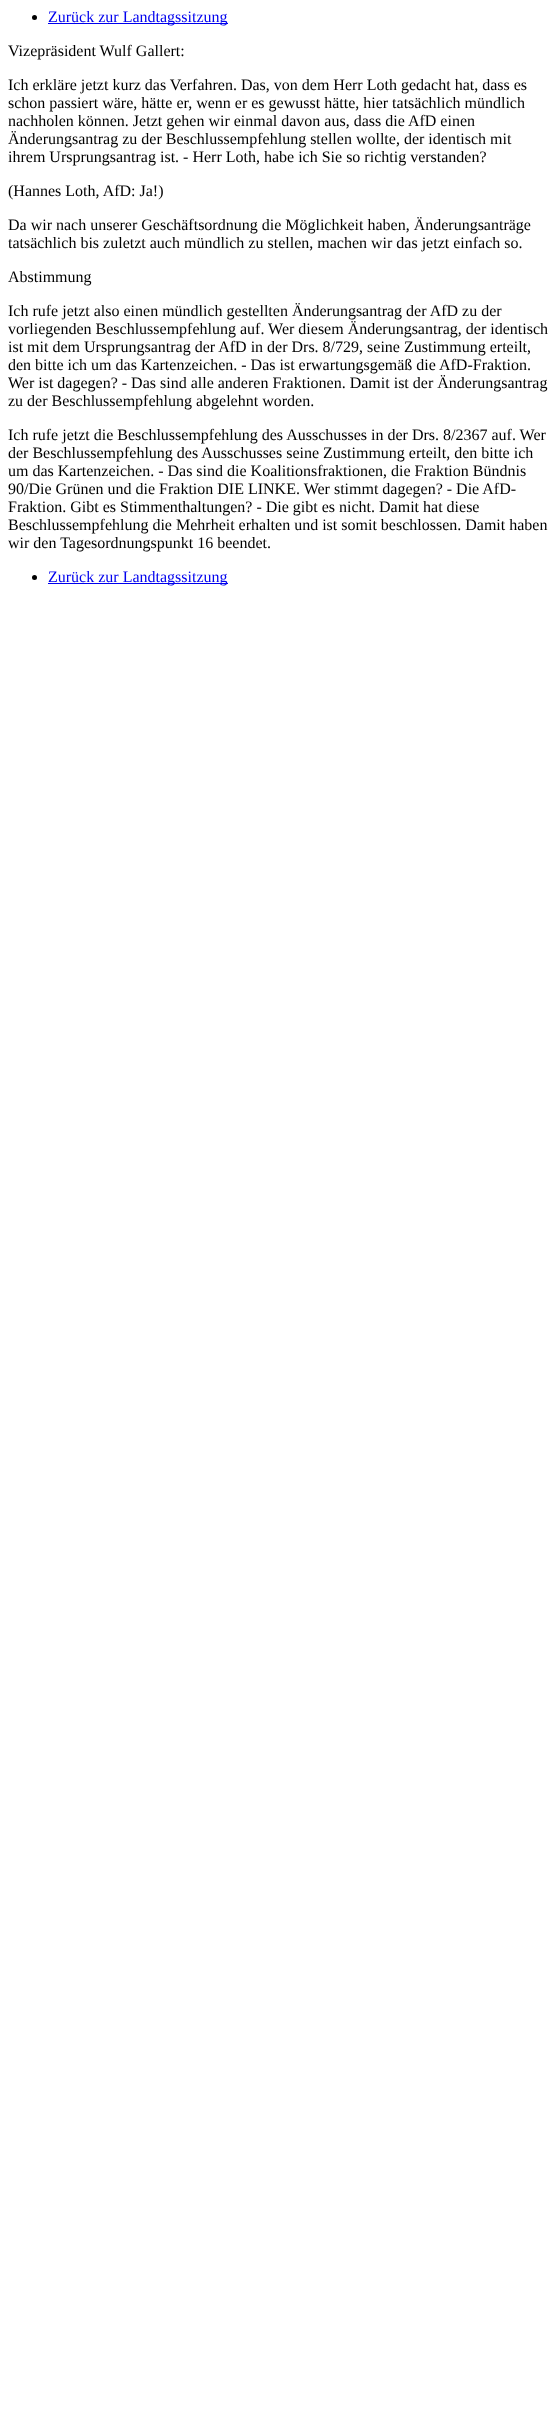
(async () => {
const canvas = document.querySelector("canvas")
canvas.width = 560
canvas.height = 2435
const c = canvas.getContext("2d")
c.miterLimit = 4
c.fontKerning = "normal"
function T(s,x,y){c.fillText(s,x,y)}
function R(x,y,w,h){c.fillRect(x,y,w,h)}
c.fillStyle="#fff"
R(0,0,560,2435)
c.fillStyle="#000"
c.beginPath()
c.arc(34.5,17.5,2.5,0,7)
c.fill()
c.fillStyle="#00e"
R(48,23,180,1)
c.font="16px Liberation Serif"
T("Zurück zur Landtagssitzung",48,22)
c.fillStyle="#000"
T("Vizepräsident Wulf Gallert:",8,56)
T("Ich erkläre jetzt kurz das Verfahren. Das, von dem Herr Loth gedacht hat, dass es",8,90)
T("schon passiert wäre, hätte er, wenn er es gewusst hätte, hier tatsächlich mündlich",8,108)
T("nachholen können. Jetzt gehen wir einmal davon aus, dass die AfD einen",8,126)
T("Änderungsantrag zu der Beschlussempfehlung stellen wollte, der identisch mit",8,144)
T("ihrem Ursprungsantrag ist. - Herr Loth, habe ich Sie so richtig verstanden?",8,162)
T("(Hannes Loth, AfD: Ja!)",8,196)
T("Da wir nach unserer Geschäftsordnung die Möglichkeit haben, Änderungsanträge",8,230)
T("tatsächlich bis zuletzt auch mündlich zu stellen, machen wir das jetzt einfach so.",8,248)
T("Abstimmung",8,282)
T("Ich rufe jetzt also einen mündlich gestellten Änderungsantrag der AfD zu der",8,316)
T("vorliegenden Beschlussempfehlung auf. Wer diesem Änderungsantrag, der identisch",8,334)
T("ist mit dem Ursprungsantrag der AfD in der Drs. 8/729, seine Zustimmung erteilt,",8,352)
T("den bitte ich um das Kartenzeichen. - Das ist erwartungsgemäß die AfD-Fraktion.",8,370)
T("Wer ist dagegen? - Das sind alle anderen Fraktionen. Damit ist der Änderungsantrag",8,388)
T("zu der Beschlussempfehlung abgelehnt worden.",8,406)
T("Ich rufe jetzt die Beschlussempfehlung des Ausschusses in der Drs. 8/2367 auf. Wer",8,440)
T("der Beschlussempfehlung des Ausschusses seine Zustimmung erteilt, den bitte ich",8,458)
T("um das Kartenzeichen. - Das sind die Koalitionsfraktionen, die Fraktion Bündnis",8,476)
T("90/Die Grünen und die Fraktion DIE LINKE. Wer stimmt dagegen? - Die AfD-",8,494)
T("Fraktion. Gibt es Stimmenthaltungen? - Die gibt es nicht. Damit hat diese",8,512)
T("Beschlussempfehlung die Mehrheit erhalten und ist somit beschlossen. Damit haben",8,530)
T("wir den Tagesordnungspunkt 16 beendet.",8,548)
c.beginPath()
c.arc(34.5,577.5,2.5,0,7)
c.fill()
c.fillStyle="#00e"
R(48,583,180,1)
T("Zurück zur Landtagssitzung",48,582)
})()
